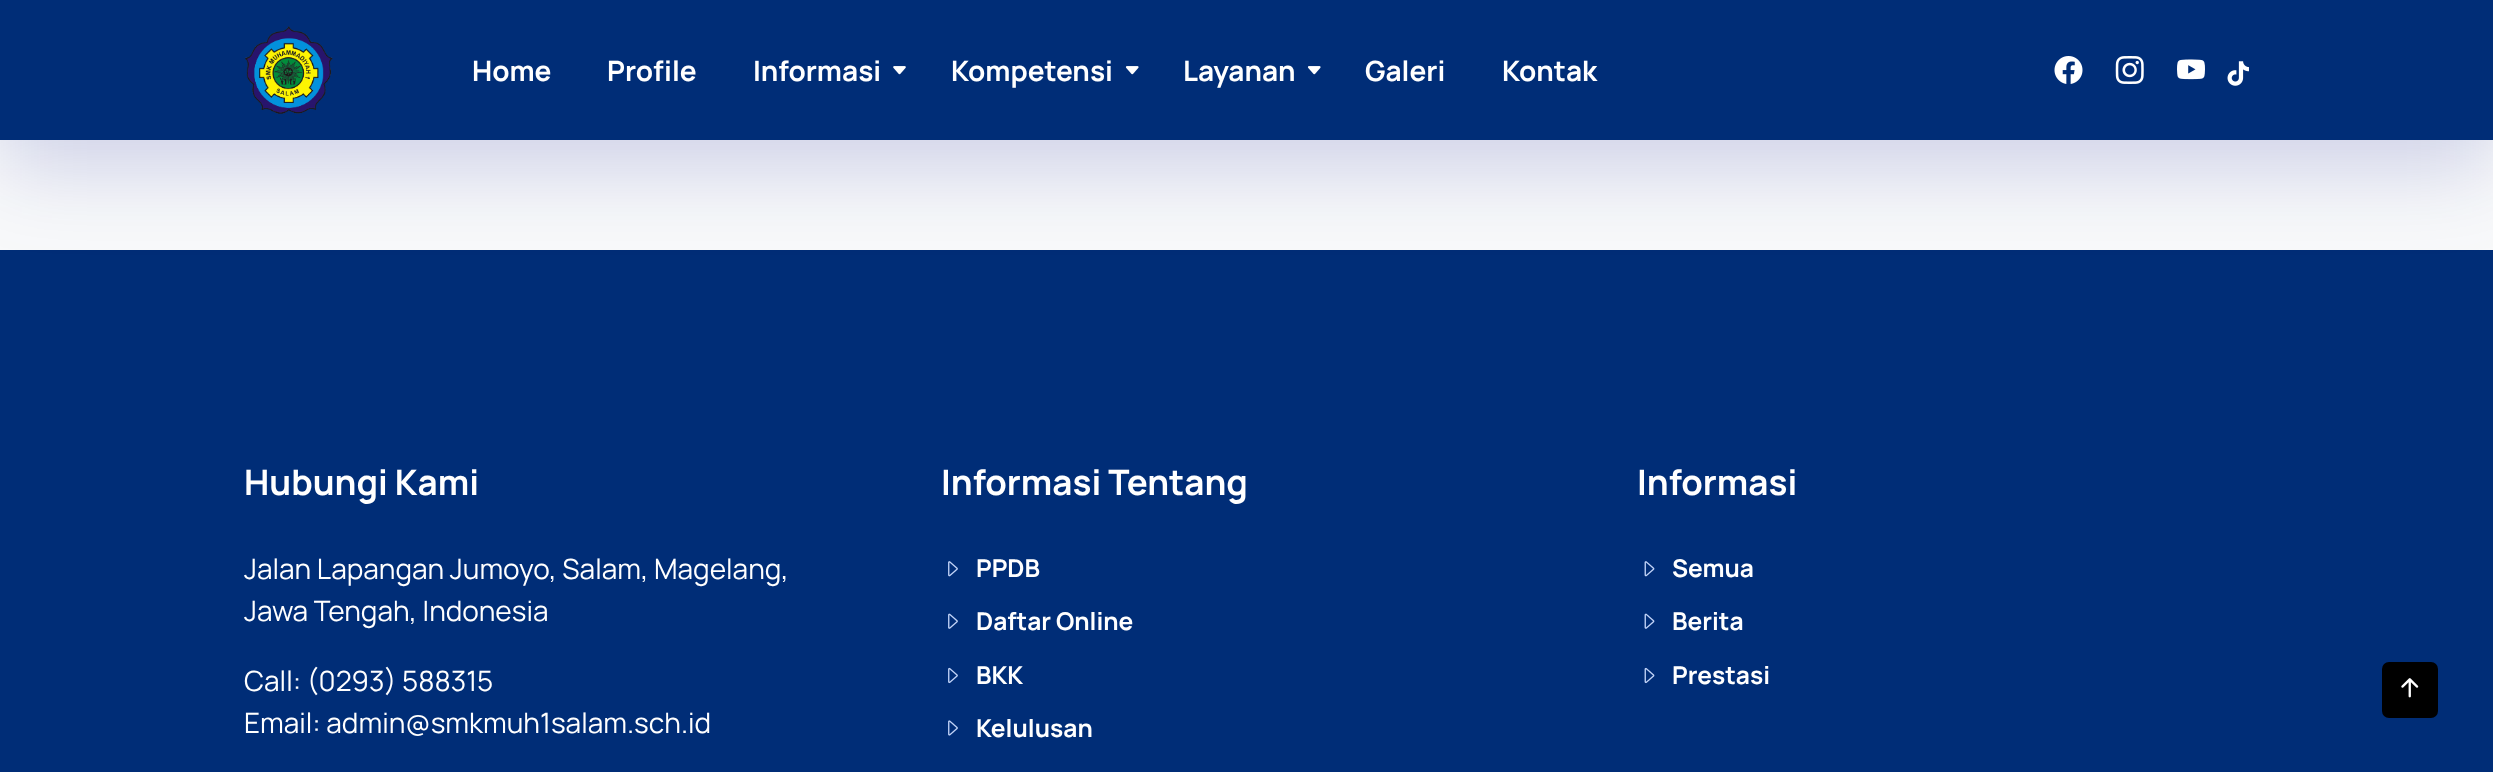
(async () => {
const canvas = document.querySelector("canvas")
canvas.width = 2493
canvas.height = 772
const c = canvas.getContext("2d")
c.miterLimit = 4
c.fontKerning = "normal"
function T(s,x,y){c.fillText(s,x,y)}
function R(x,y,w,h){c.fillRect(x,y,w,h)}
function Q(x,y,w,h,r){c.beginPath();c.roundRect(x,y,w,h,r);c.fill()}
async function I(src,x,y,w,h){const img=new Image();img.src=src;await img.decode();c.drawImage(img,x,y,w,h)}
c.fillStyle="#f8f9fa"
R(0,0,2493,772)
c.fillStyle="#002d77"
R(0,250,2493,522)
c.fillStyle="#0f1e962e"
c.filter="blur(42px)"
c.beginPath()
c.rect(0,28,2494,140)
c.fill()
c.filter="none"
c.fillStyle="#002d77"
R(0,0,2493,140)
await I("1.png",245,26,88,88)
c.font="bold 28px Manrope"
c.fillStyle="#fff"
T("Home",472,81)
T("Profile",607,81)
T("Informasi",753,81)
await I("2.png",893,66,13,9)
T("Kompetensi",951,81)
await I("3.png",1125,66,14,9)
T("Layanan",1183,81)
await I("3.png",1307,66,14,9)
T("Galeri",1365,81)
T("Kontak",1502,81)
await I("4.png",2054,56,29,28)
await I("5.png",2115,56,29,28)
await I("6.png",2177,59,28,21)
await I("7.png",2227,61,22,25)
c.font="bold 35px Manrope"
T("Hubungi Kami",244,495)
c.font="28px Manrope"
T("Jalan Lapangan Jumoyo, Salam, Magelang,",244,579)
T("Jawa Tengah, Indonesia",244,621)
T("Call: (0293) 588315",244,691)
T("Email: admin@smkmuh1salam.sch.id",244,733)
c.font="bold 35px Manrope"
T("Informasi Tentang",941,495)
await I("8.png",948,561,10,16)
c.font="bold 24.5px Manrope"
T("PPDB",976,577)
await I("9.png",948,613,10,16)
T("Daftar Online",976,630)
await I("10.png",948,667,10,17)
T("BKK",976,684)
await I("11.png",948,720,10,16)
T("Kelulusan",976,737)
c.font="bold 35px Manrope"
T("Informasi",1637,495)
await I("12.png",1644,561,11,16)
c.font="bold 24.5px Manrope"
T("Semua",1672,577)
await I("13.png",1644,613,11,16)
T("Berita",1672,630)
await I("14.png",1644,667,11,17)
T("Prestasi",1672,684)
c.fillStyle="#000"
Q(2382,662,56,56,7)
await I("15.png",2401,678,18,20)
})()
